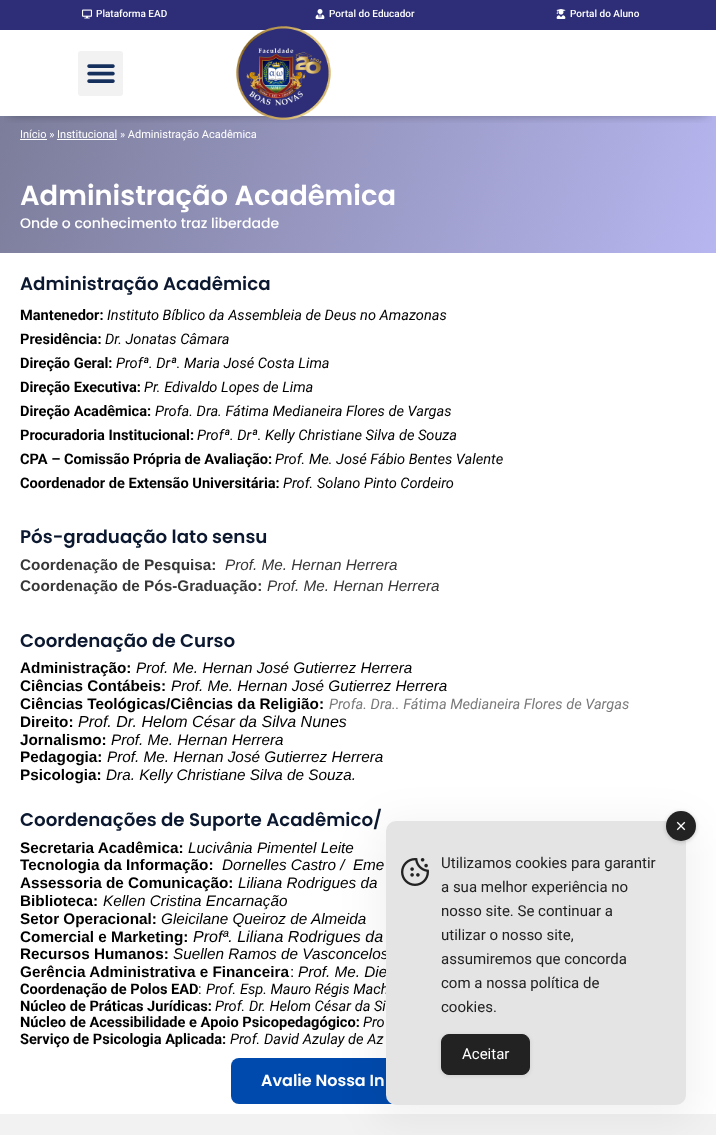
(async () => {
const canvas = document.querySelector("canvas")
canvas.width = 716
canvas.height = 1135
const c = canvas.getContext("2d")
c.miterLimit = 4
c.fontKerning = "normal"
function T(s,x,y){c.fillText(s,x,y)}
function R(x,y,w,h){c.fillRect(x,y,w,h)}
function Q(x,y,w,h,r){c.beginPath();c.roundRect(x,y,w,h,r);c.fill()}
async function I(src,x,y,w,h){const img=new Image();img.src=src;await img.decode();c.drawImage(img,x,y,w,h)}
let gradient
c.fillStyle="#fff"
R(0,0,716,1135)
c.fillStyle="#2d2e77"
R(0,0,716,30)
await I("1.png",82,9,10,10)
c.font="500 10px Roboto"
c.fillStyle="#fff"
T("Plataforma EAD",96,17)
await I("2.png",315,9,10,10)
T("Portal do Educador",329,17)
await I("3.png",556,9,10,10)
T("Portal do Aluno",570,17)
gradient = c.createLinearGradient(20,61,696,308)
gradient.addColorStop(0,"#7c7d9a")
gradient.addColorStop(1,"#b7b6f0")
c.fillStyle = gradient
R(0,116,716,137)
c.save()
c.beginPath()
c.rect(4,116,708,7)
c.clip()
c.fillStyle="#00000080"
c.filter="blur(6px)"
c.beginPath()
c.rect(10,47,696,66)
c.fill()
c.filter="none"
c.restore()
c.fillStyle="#f2f2f2"
Q(78,51,45,45,3)
await I("4.png",87,64,28,19)
await I("5.png",236,26,95,94)
c.fillStyle="#fff"
R(20,139,27,1)
c.font="11px Roboto"
T("Início » Institucional » Administração Acadêmica",20,138)
R(57,139,60,1)
c.font="600 27.4px Poppins"
T("Administração Acadêmica",20,205)
c.font="500 14px Poppins"
T("Onde o conhecimento traz liberdade",20,228)
c.font="600 18.25px Poppins"
c.fillStyle="#0b182f"
T("Administração Acadêmica",20,290)
c.font="bold 14.6px Roboto"
c.fillStyle="#000"
T("Mantenedor:",20,320)
c.font="italic 14.6px Roboto"
T("Instituto Bíblico da Assembleia de Deus no Amazonas",107,320)
c.font="bold 14.6px Roboto"
T("Presidência:",20,344)
c.font="italic 14.6px Roboto"
T("Dr. Jonatas Câmara",105,344)
c.font="bold 14.6px Roboto"
T("Direção Geral:",20,368)
c.font="italic 14.6px Roboto"
T("Profª. Drª. Maria José Costa Lima",116,368)
c.font="bold 14.6px Roboto"
T("Direção Executiva:",20,392)
c.font="italic 14.6px Roboto"
T("Pr. Edivaldo Lopes de Lima",144,392)
c.font="bold 14.6px Roboto"
T("Direção Acadêmica:",20,416)
c.font="italic 14.6px Roboto"
T("Profa. Dra. Fátima Medianeira Flores de Vargas",155,416)
c.font="bold 14.6px Roboto"
T("Procuradoria Institucional:",20,440)
c.font="italic 14.6px Roboto"
T("Profª. Drª. Kelly Christiane Silva de Souza",197,440)
c.font="bold 14.6px Roboto"
T("CPA – Comissão Própria de Avaliação:",20,464)
c.font="italic 14.6px Roboto"
T("Prof. Me. José Fábio Bentes Valente",275,464)
c.font="bold 14.6px Roboto"
T("Coordenador de Extensão Universitária:",20,488)
c.font="italic 14.6px Roboto"
T("Prof. Solano Pinto Cordeiro",283,488)
c.font="600 18.25px Poppins"
c.fillStyle="#0b182f"
T("Pós-graduação lato sensu",20,543)
c.font="bold 15.3px Liberation Sans"
c.fillStyle="#383838"
T("Coordenação de Pesquisa:",20,570)
c.font="italic 15.3px Liberation Sans"
T("Prof. Me. Hernan Herrera",225,570)
c.font="bold 15.3px Liberation Sans"
T("Coordenação de Pós-Graduação:",20,591)
c.font="italic 15.3px Liberation Sans"
T("Prof. Me. Hernan Herrera",267,591)
c.font="600 18.25px Poppins"
c.fillStyle="#0b182f"
T("Coordenação de Curso",20,647)
c.font="bold 15.3px Liberation Sans"
c.fillStyle="#000"
T("Administração:",20,673)
c.font="italic 15.3px Liberation Sans"
T("Prof. Me. Hernan José Gutierrez Herrera",136,673)
c.font="bold 15.3px Liberation Sans"
T("Ciências Contábeis:",20,691)
c.font="italic 15.3px Liberation Sans"
T("Prof. Me. Hernan José Gutierrez Herrera",171,691)
c.font="bold 15.3px Liberation Sans"
T("Ciências Teológicas/Ciências da Religião:",20,709)
c.font="italic 14.6px Roboto"
c.fillStyle="#7a7a7a"
T("Profa. Dra.. Fátima Medianeira Flores de Vargas",329,709)
c.font="bold 15.3px Liberation Sans"
c.fillStyle="#000"
T("Direito:",20,727)
c.font="italic 16px Liberation Sans"
T("Prof. Dr. Helom César da Silva Nunes",78,727)
c.font="bold 15.3px Liberation Sans"
T("Jornalismo:",20,745)
c.font="italic 15.3px Liberation Sans"
T("Prof. Me. Hernan Herrera",111,745)
c.font="bold 15.3px Liberation Sans"
T("Pedagogia:",20,762)
c.font="italic 15.3px Liberation Sans"
T("Prof. Me. Hernan José Gutierrez Herrera",107,762)
c.font="bold 15.3px Liberation Sans"
T("Psicologia:",20,780)
c.font="italic 15.3px Liberation Sans"
T("Dra. Kelly Christiane Silva de Souza.",106,780)
c.font="600 18.25px Poppins"
c.fillStyle="#0b182f"
T("Coordenações de Suporte Acadêmico/",20,826)
c.font="bold 15.3px Liberation Sans"
c.fillStyle="#000"
T("Secretaria Acadêmica:",20,853)
c.font="italic 15.3px Liberation Sans"
T("Lucivânia Pimentel Leite",188,853)
c.font="bold 15.3px Liberation Sans"
T("Tecnologia da Informação:",20,870)
c.font="italic 15.3px Liberation Sans"
T("Dornelles Castro /  Eme",222,870)
c.font="bold 15.3px Liberation Sans"
T("Assessoria de Comunicação:",20,888)
c.font="italic 15.3px Liberation Sans"
T("Liliana Rodrigues da",238,888)
c.font="bold 15.3px Liberation Sans"
T("Biblioteca:",20,906)
c.font="italic 15.3px Liberation Sans"
T("Kellen Cristina Encarnação",103,906)
c.font="bold 15.3px Liberation Sans"
T("Setor Operacional:",20,924)
c.font="italic 15.3px Liberation Sans"
T("Gleicilane Queiroz de Almeida",161,924)
c.font="bold 15.3px Liberation Sans"
T("Comercial e Marketing:",20,942)
c.font="italic 16px Liberation Sans"
T("Profª. Liliana Rodrigues da",193,942)
c.font="bold 15.3px Liberation Sans"
T("Recursos Humanos:",20,959)
c.font="italic 15.3px Liberation Sans"
T("Suellen Ramos de Vasconcelos",173,959)
c.font="bold 15.3px Liberation Sans"
T("Gerência Administrativa e Financeira",20,977)
c.font="15.3px Liberation Sans"
T(":",290,977)
c.font="italic 15.3px Liberation Sans"
T("Prof. Me. Die",298,977)
c.font="bold 14.6px Roboto"
T("Coordenação de Polos EAD",20,994)
c.font="14.6px Roboto"
T(":",198,994)
c.font="italic 14.6px Roboto"
T("Prof. Esp. Mauro Régis Mach",206,994)
c.font="bold 14.6px Roboto"
T("Núcleo de Práticas Jurídicas:",20,1011)
c.font="italic 14.6px Roboto"
T("Prof. Dr. Helom César da Si",215,1011)
c.font="bold 14.6px Roboto"
T("Núcleo de Acessibilidade e Apoio Psicopedagógico:",20,1027)
c.font="italic 14.6px Roboto"
T("Pro",363,1027)
c.font="bold 14.6px Roboto"
T("Serviço de Psicologia Aplicada:",20,1044)
c.font="italic 14.6px Roboto"
T("Prof. David Azulay de Az",230,1044)
c.fillStyle="#004aad"
Q(231,1058,254,46,8)
c.font="600 16px Poppins"
c.fillStyle="#fff"
T("Avalie Nossa In",261,1086)
c.fillStyle="#f2f2f2"
R(0,1114,716,21)
c.fillStyle="#0000000d"
c.filter="blur(20px)"
c.beginPath()
c.roundRect(376,821,320,304,20)
c.fill()
c.filter="none"
c.fillStyle="#e4e4e4"
Q(386,821,300,284,10)
c.fillStyle="#00000033"
c.filter="blur(2px)"
c.beginPath()
c.roundRect(666,812,30,30,15)
c.fill()
c.filter="none"
c.fillStyle="#222"
c.beginPath()
c.arc(681,826,15,0,7)
c.fill()
await I("6.png",676,821,10,10)
await I("7.png",401,858,28,28)
c.font="15px Roboto"
T("Utilizamos cookies para garantir",441,868)
T("a sua melhor experiência no",441,892)
T("nosso site. Se continuar a",441,916)
T("utilizar o nosso site,",441,940)
T("assumiremos que concorda",441,964)
T("com a nossa política de",441,988)
T("cookies.",441,1012)
c.fillStyle="#0000001a"
c.filter="blur(2px)"
c.beginPath()
c.roundRect(441,1035,89,41,8)
c.fill()
c.filter="none"
c.fillStyle="#222"
c.beginPath()
c.roundRect(441.5,1034.5,88,40,7.5)
c.fill()
c.strokeStyle="#222"
c.stroke()
c.fillStyle="#fff"
T("Aceitar",462,1059)
})()
